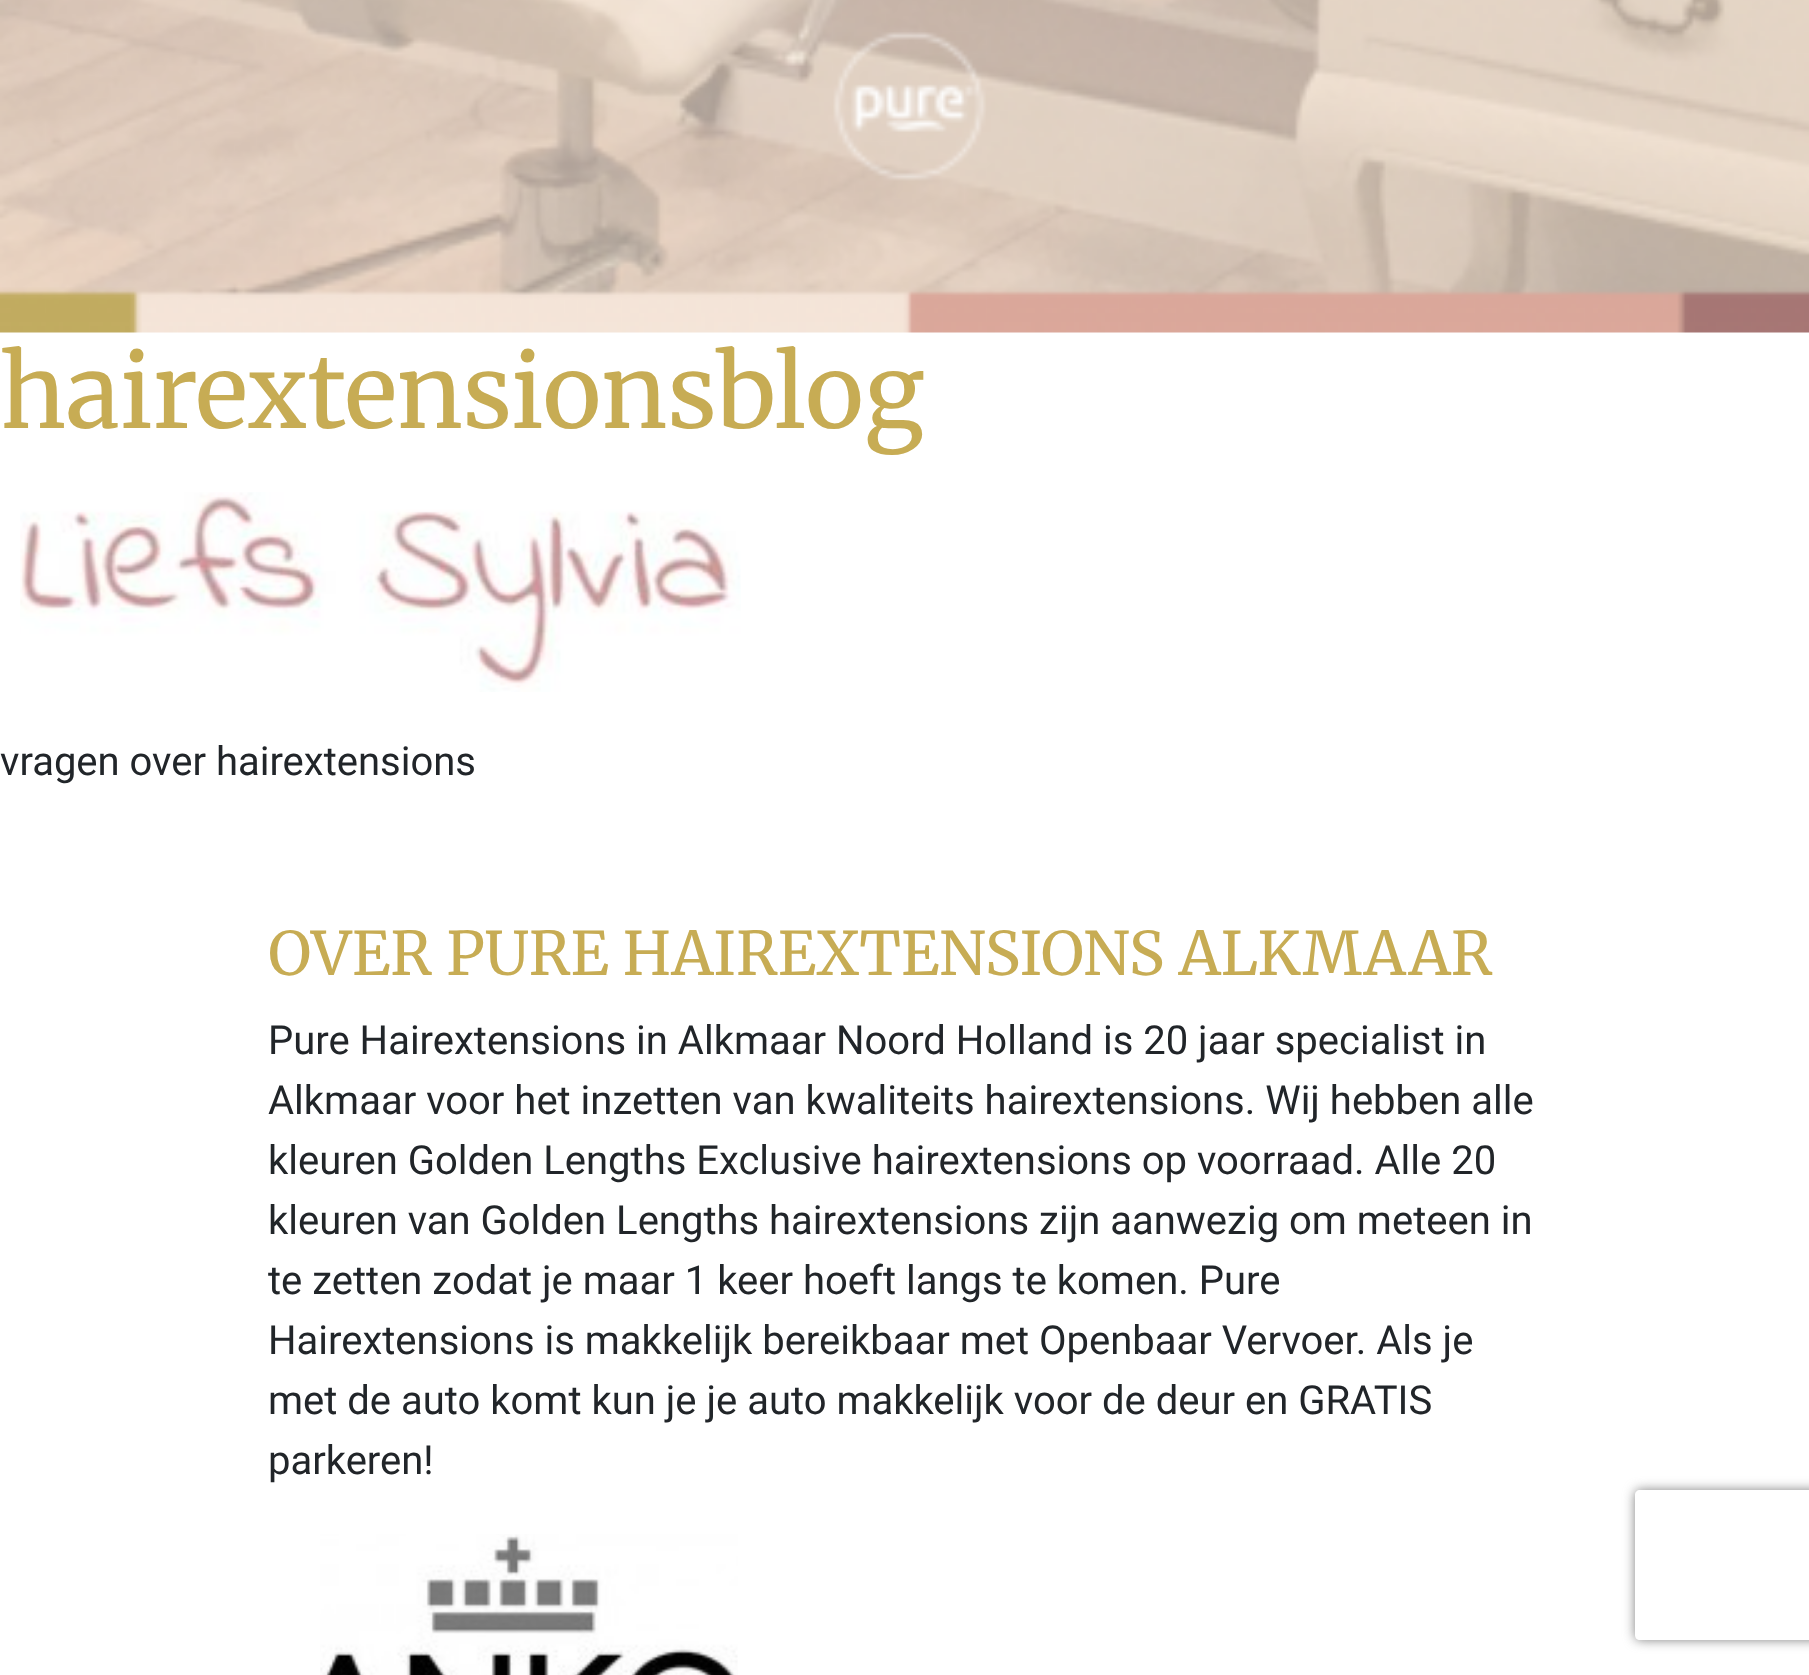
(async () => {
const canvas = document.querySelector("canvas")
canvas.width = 1809
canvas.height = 1675
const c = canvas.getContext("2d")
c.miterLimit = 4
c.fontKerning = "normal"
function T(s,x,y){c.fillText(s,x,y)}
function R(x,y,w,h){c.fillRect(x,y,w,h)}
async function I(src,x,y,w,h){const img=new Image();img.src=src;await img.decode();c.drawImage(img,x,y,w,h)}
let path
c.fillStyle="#fff"
R(0,0,1809,1675)
await I("1.png",0,0,1809,333)
c.font="100px Merriweather"
c.fillStyle="#c7ac54"
T("hairextensionsblog",0,428)
await I("2.png",20,492,721,200)
c.font="40px Roboto"
c.fillStyle="#212529"
T("vragen over hairextensions",0,775)
c.font="60px Merriweather"
c.fillStyle="#c7ac54"
T("OVER PURE HAIREXTENSIONS ALKMAAR",268,975)
c.font="40px Roboto"
c.fillStyle="#212529"
T("Pure Hairextensions in Alkmaar Noord Holland is 20 jaar specialist in",268,1054)
T("Alkmaar voor het inzetten van kwaliteits hairextensions. Wij hebben alle",268,1114)
T("kleuren Golden Lengths Exclusive hairextensions op voorraad. Alle 20",268,1174)
T("kleuren van Golden Lengths hairextensions zijn aanwezig om meteen in",268,1234)
T("te zetten zodat je maar 1 keer hoeft langs te komen. Pure",268,1294)
T("Hairextensions is makkelijk bereikbaar met Openbaar Vervoer. Als je",268,1354)
T("met de auto komt kun je je auto makkelijk voor de deur en GRATIS",268,1414)
T("parkeren!",268,1474)
await I("3.png",320,1534,418,141)
c.save()
path = new Path2D("M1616 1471h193v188h-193zm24 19h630c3 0 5 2 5 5v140c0 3-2 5-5 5h-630c-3 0-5-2-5-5v-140c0-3 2-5 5-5z")
c.clip(path,"evenodd")
c.fillStyle="#808080"
c.filter="blur(6px)"
c.beginPath()
c.roundRect(1635,1490,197,150,5)
c.fill()
c.filter="none"
c.restore()
})()
